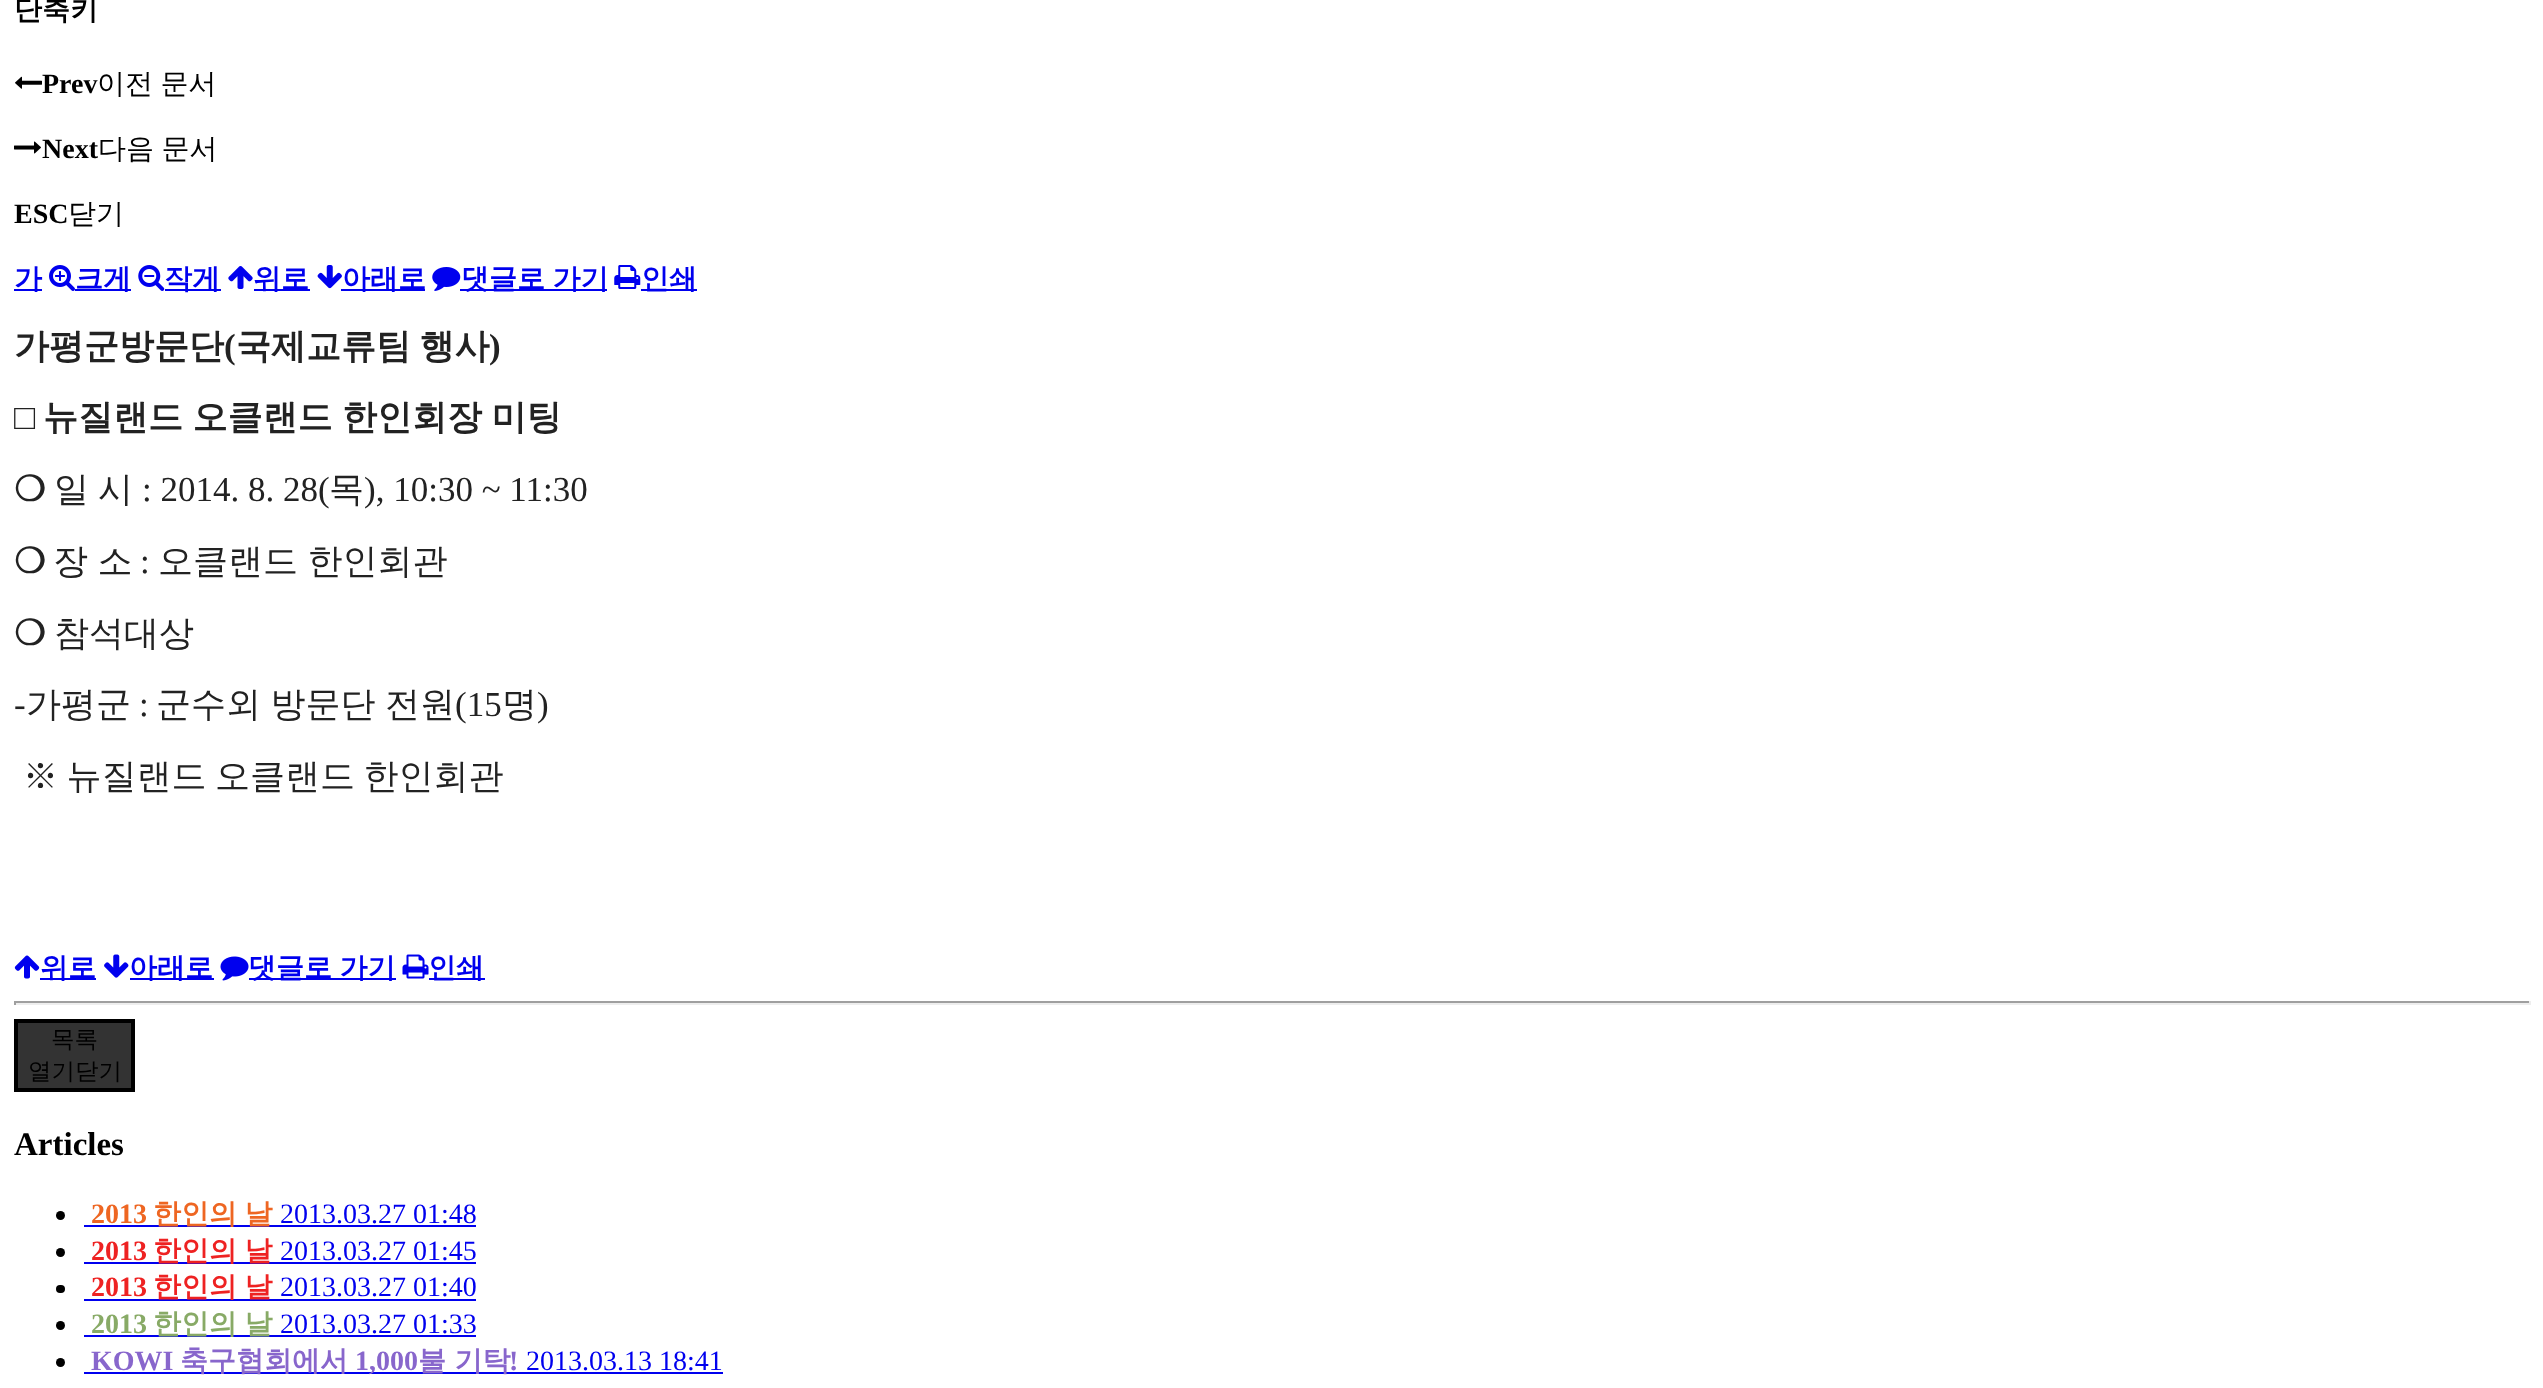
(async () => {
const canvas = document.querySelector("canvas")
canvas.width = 2543
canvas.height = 1388
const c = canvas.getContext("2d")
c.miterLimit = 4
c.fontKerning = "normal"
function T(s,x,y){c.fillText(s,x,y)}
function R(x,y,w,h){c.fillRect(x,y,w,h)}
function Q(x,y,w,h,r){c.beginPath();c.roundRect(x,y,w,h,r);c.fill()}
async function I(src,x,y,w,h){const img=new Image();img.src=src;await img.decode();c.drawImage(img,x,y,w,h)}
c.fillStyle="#fff"
R(0,0,2543,1388)
c.font="bold 28px WenQuanYi Zen Hei"
c.fillStyle="#000"
T("단축키",14,19)
await I("1.png",15,76,27,13)
c.font="bold 28px Liberation Serif"
T("Prev",42,93)
c.wordSpacing="-1px"
c.font="500 28px WenQuanYi Zen Hei"
T("이전 문서",97,93)
await I("2.png",14,141,27,13)
c.wordSpacing="0px"
c.font="bold 28px Liberation Serif"
T("Next",42,158)
c.wordSpacing="-1px"
c.font="500 28px WenQuanYi Zen Hei"
T("다음 문서",98,158)
c.wordSpacing="0px"
c.font="bold 28px Liberation Serif"
T("ESC",14,223)
c.font="500 28px WenQuanYi Zen Hei"
T("닫기",68,223)
c.fillStyle="#00e"
R(14,289,28,2)
c.font="bold 28px WenQuanYi Zen Hei"
T("가",14,288)
await I("3.png",49,265,26,26)
R(75,289,56,2)
T("크게",75,288)
await I("4.png",138,265,27,26)
R(165,289,56,2)
T("작게",164,288)
await I("5.png",228,266,25,23)
R(254,289,56,2)
T("위로",253,288)
await I("6.png",317,265,25,24)
R(341,289,84,2)
T("아래로",342,288)
await I("7.png",432,267,29,24)
R(460,289,147,2)
c.wordSpacing="-1px"
T("댓글로 가기",461,288)
await I("8.png",614,265,27,24)
R(641,289,56,2)
c.wordSpacing="0px"
T("인쇄",641,288)
c.font="bold 35px WenQuanYi Zen Hei"
c.fillStyle="#222"
T("가평군방문단",14,358)
c.font="bold 35px Liberation Serif"
T("(",224,358)
c.wordSpacing="-2px"
c.font="bold 35px WenQuanYi Zen Hei"
T("국제교류팀 행사",236,358)
c.wordSpacing="0px"
c.font="bold 35px Liberation Serif"
T(")",489,358)
T("□",14,429)
c.wordSpacing="-1px"
c.font="bold 35px WenQuanYi Zen Hei"
T("뉴질랜드 오클랜드 한인회장 미팅",43,429)
c.wordSpacing="0px"
c.font="bold 35px DejaVu Sans"
T("❍",14,501)
c.font="500 35px WenQuanYi Zen Hei"
T("일",54,501)
T("시",98,501)
c.font="35px Liberation Serif"
T(": 2014. 8. 28(",142,501)
c.font="500 35px WenQuanYi Zen Hei"
T("목",329,501)
c.font="35px Liberation Serif"
T("), 10:30 ~ 11:30",364,501)
c.font="bold 35px DejaVu Sans"
T("❍",14,573)
c.wordSpacing="-1px"
c.font="500 35px WenQuanYi Zen Hei"
T("장 소",53,573)
c.wordSpacing="0px"
c.font="35px Liberation Serif"
T(":",140,573)
c.wordSpacing="-1px"
c.font="500 35px WenQuanYi Zen Hei"
T("오클랜드 한인회관",158,573)
c.wordSpacing="0px"
c.font="bold 35px DejaVu Sans"
T("❍",14,645)
c.font="500 35px WenQuanYi Zen Hei"
T("참석대상",54,645)
c.font="35px Liberation Serif"
T("-",14,716)
c.font="500 35px WenQuanYi Zen Hei"
T("가평군",26,716)
c.font="35px Liberation Serif"
T(":",139,716)
c.wordSpacing="-1px"
c.font="500 35px WenQuanYi Zen Hei"
T("군수외 방문단 전원",156,716)
c.wordSpacing="0px"
c.font="35px Liberation Serif"
T("(15",455,716)
c.font="500 35px WenQuanYi Zen Hei"
T("명",502,716)
c.font="35px Liberation Serif"
T(")",537,716)
c.wordSpacing="-2px"
c.font="500 35px WenQuanYi Zen Hei"
T("※ 뉴질랜드 오클랜드 한인회관",23,788)
await I("9.png",14,955,26,24)
c.fillStyle="#00e"
R(40,978,56,2)
c.wordSpacing="0px"
c.font="bold 28px WenQuanYi Zen Hei"
T("위로",40,977)
await I("10.png",104,954,25,24)
R(130,978,84,2)
T("아래로",129,977)
await I("11.png",220,956,29,25)
R(249,978,147,2)
c.wordSpacing="-1px"
T("댓글로 가기",248,977)
await I("12.png",402,954,27,25)
R(429,978,56,2)
c.wordSpacing="0px"
T("인쇄",428,977)
c.fillStyle="#9f9f9f"
R(14,1001,2517,2)
c.fillStyle="#eee"
R(2529,1001,2,4)
R(14,1003,2517,2)
c.fillStyle="#9f9f9f"
R(14,1001,2,4)
c.fillStyle="#333"
c.beginPath()
c.rect(16,1021,117,69)
c.fill()
c.strokeStyle="#000"
c.lineWidth=4
c.stroke()
c.font="500 23.5px WenQuanYi Zen Hei"
c.fillStyle="#000"
T("목록",51,1047)
T("열기닫기",28,1079)
c.font="bold 33px Liberation Serif"
T("Articles",14,1155)
c.beginPath()
c.arc(60.5,1215.5,4.5,0,7)
c.fill()
c.font="bold 28px Liberation Serif"
c.fillStyle="#e62"
T("2013",91,1223)
c.fillStyle="#00e"
R(84,1225,392,2)
c.wordSpacing="-1px"
c.font="bold 28px WenQuanYi Zen Hei"
c.fillStyle="#e62"
T("한인의 날",153,1223)
c.wordSpacing="0px"
c.font="28px Liberation Serif"
c.fillStyle="#00e"
T("2013.03.27 01:48",280,1223)
c.fillStyle="#000"
c.beginPath()
c.arc(60.5,1252.5,4.5,0,7)
c.fill()
c.font="bold 28px Liberation Serif"
c.fillStyle="#e22"
T("2013",91,1260)
c.fillStyle="#00e"
R(84,1262,392,2)
c.wordSpacing="-1px"
c.font="bold 28px WenQuanYi Zen Hei"
c.fillStyle="#e22"
T("한인의 날",153,1260)
c.wordSpacing="0px"
c.font="28px Liberation Serif"
c.fillStyle="#00e"
T("2013.03.27 01:45",280,1260)
c.fillStyle="#000"
Q(56,1285,9,8,4)
c.font="bold 28px Liberation Serif"
c.fillStyle="#e22"
T("2013",91,1296)
c.fillStyle="#00e"
R(84,1299,392,2)
c.wordSpacing="-1px"
c.font="bold 28px WenQuanYi Zen Hei"
c.fillStyle="#e22"
T("한인의 날",153,1296)
c.wordSpacing="0px"
c.font="28px Liberation Serif"
c.fillStyle="#00e"
T("2013.03.27 01:40",280,1296)
c.fillStyle="#000"
c.beginPath()
c.arc(60.5,1325.5,4.5,0,7)
c.fill()
c.font="bold 28px Liberation Serif"
c.fillStyle="#8a6"
T("2013",91,1333)
c.fillStyle="#00e"
R(84,1335,392,2)
c.wordSpacing="-1px"
c.font="bold 28px WenQuanYi Zen Hei"
c.fillStyle="#8a6"
T("한인의 날",153,1333)
c.wordSpacing="0px"
c.font="28px Liberation Serif"
c.fillStyle="#00e"
T("2013.03.27 01:33",280,1333)
c.fillStyle="#000"
c.beginPath()
c.arc(60.5,1362.5,4.5,0,7)
c.fill()
c.font="bold 28px Liberation Serif"
c.fillStyle="#86c"
T("KOWI",91,1370)
c.fillStyle="#00e"
R(84,1372,639,2)
c.font="bold 28px WenQuanYi Zen Hei"
c.fillStyle="#86c"
T("축구협회에서",180,1370)
c.font="bold 28px Liberation Serif"
T("1,000",355,1370)
c.font="bold 28px WenQuanYi Zen Hei"
T("불 기탁",418,1370)
c.font="bold 28px Liberation Serif"
T("!",509,1370)
c.font="28px Liberation Serif"
c.fillStyle="#00e"
T("2013.03.13 18:41",526,1370)
})()
